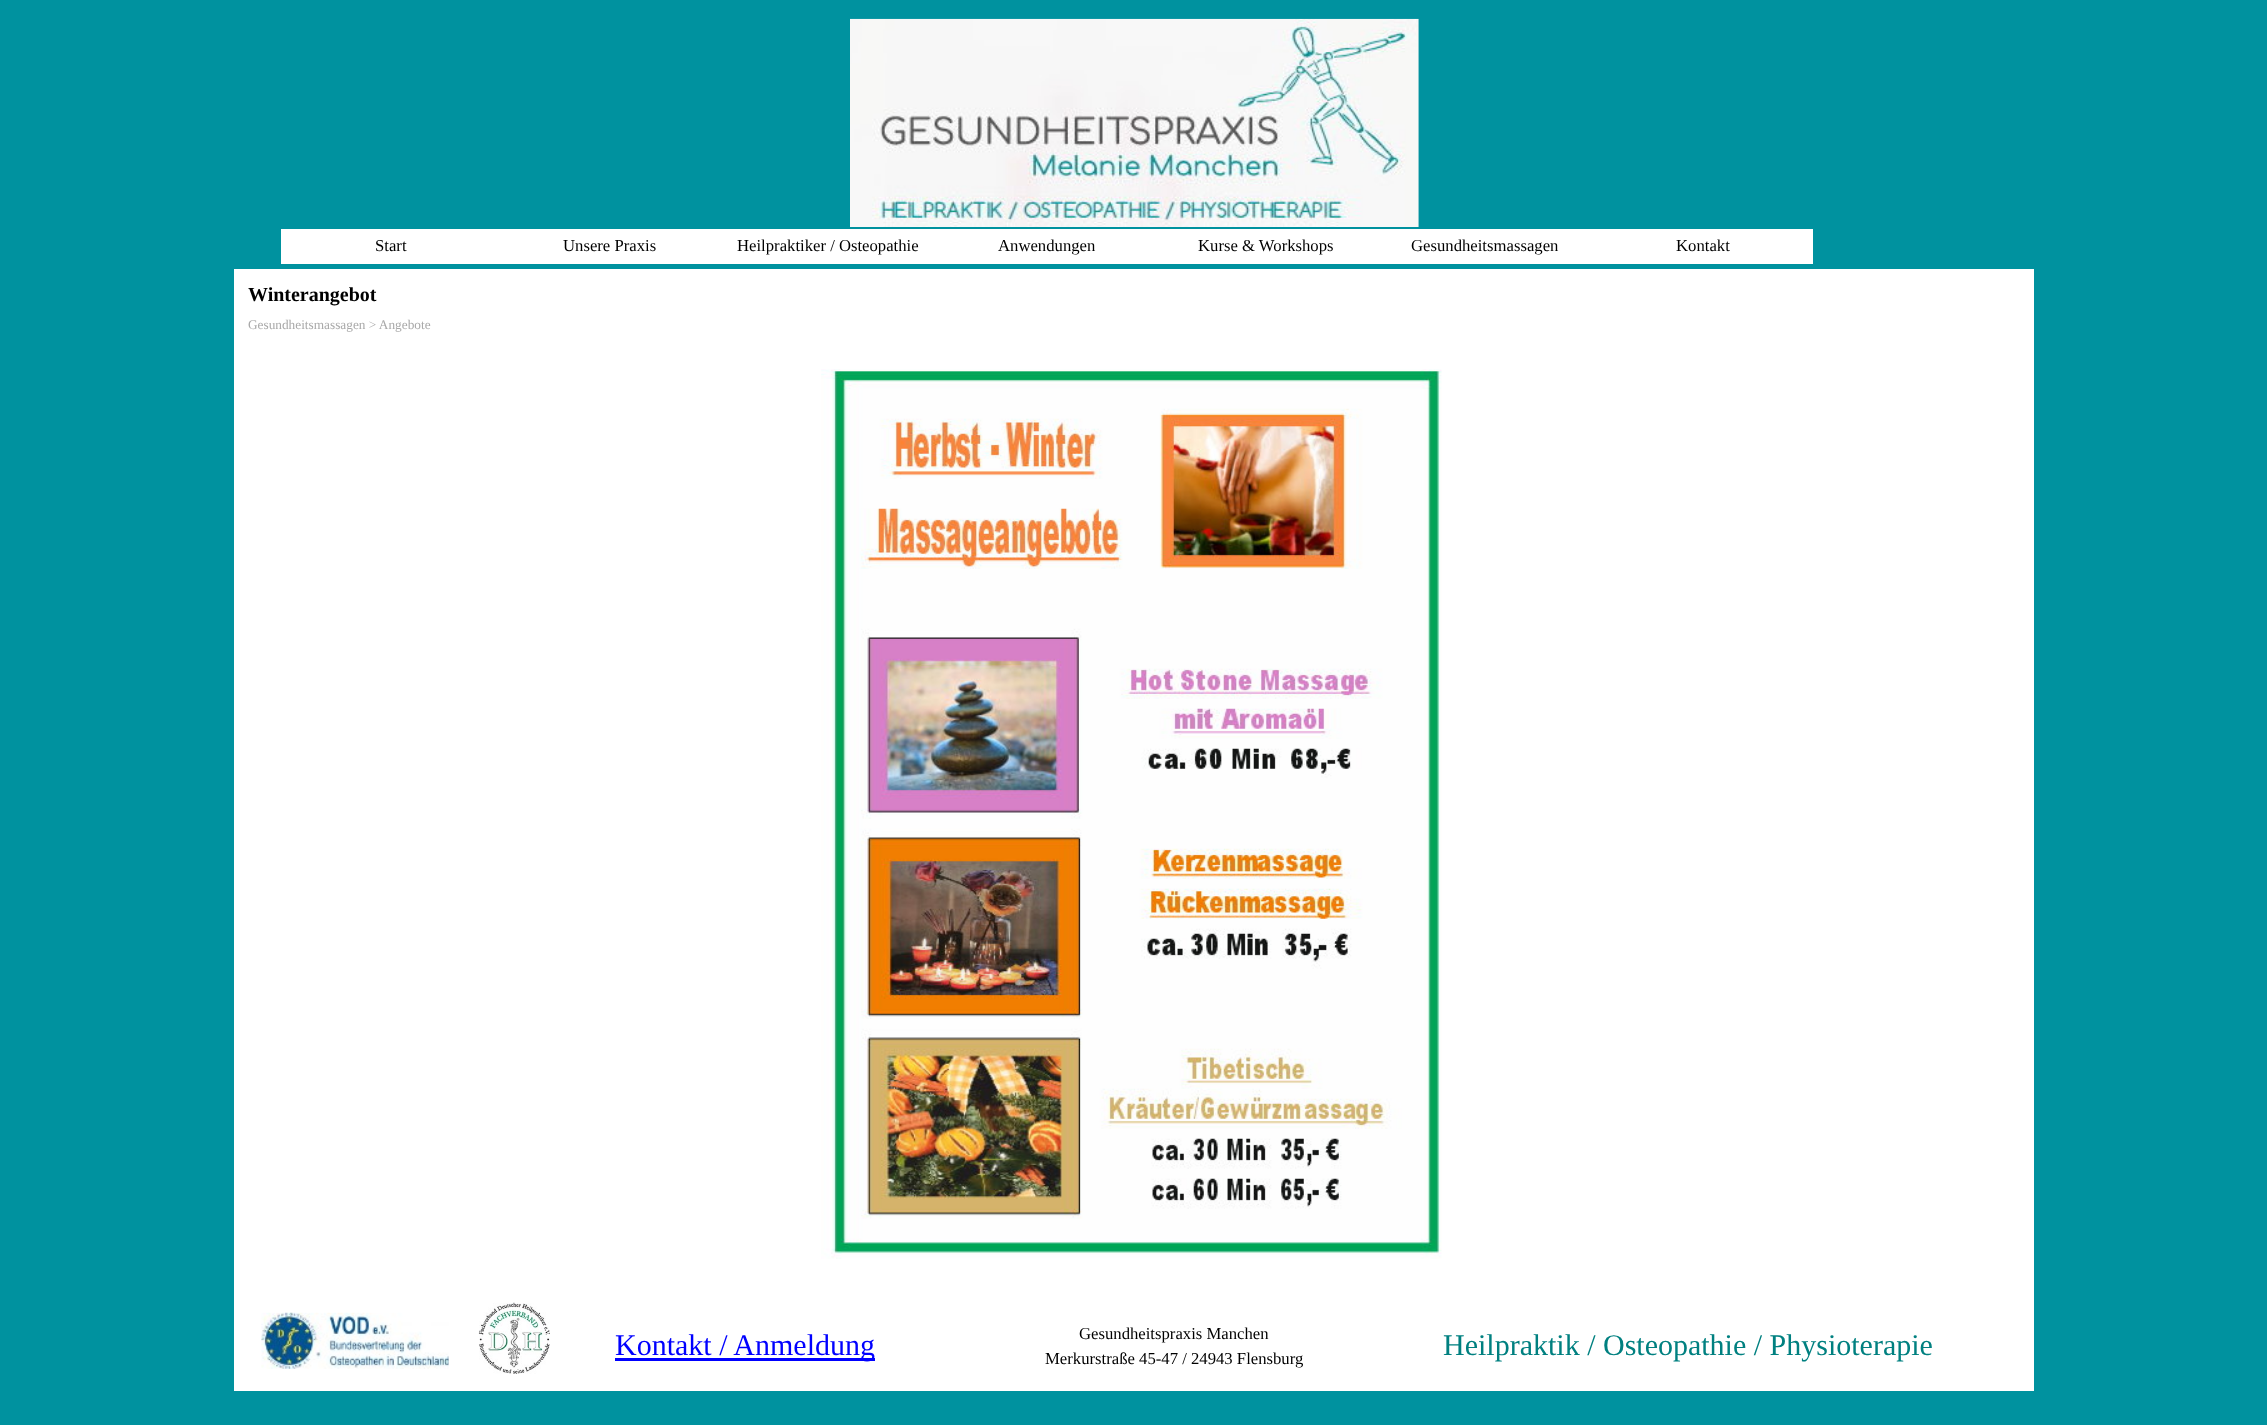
(async () => {
const canvas = document.querySelector("canvas")
canvas.width = 2267
canvas.height = 1425
const c = canvas.getContext("2d")
c.miterLimit = 4
c.fontKerning = "normal"
function T(s,x,y){c.fillText(s,x,y)}
function R(x,y,w,h){c.fillRect(x,y,w,h)}
async function I(src,x,y,w,h){const img=new Image();img.src=src;await img.decode();c.drawImage(img,x,y,w,h)}
c.fillStyle="#00929f"
R(0,0,2267,1425)
await I("1.png",850,18,569,209)
c.fillStyle="#fff"
R(281,229,1532,35)
c.font="16.7px Liberation Serif"
c.fillStyle="#000"
T("Start",375,251)
T("Unsere Praxis",563,251)
T("Heilpraktiker / Osteopathie",737,251)
T("Anwendungen",998,251)
T("Kurse & Workshops",1198,251)
T("Gesundheitsmassagen",1411,251)
T("Kontakt",1676,251)
c.fillStyle="#fff"
R(234,269,1800,1122)
c.font="bold 20px Liberation Serif"
c.fillStyle="#000"
T("Winterangebot",248,301)
c.font="13.3px Liberation Serif"
c.fillStyle="#a9a9a9"
T("Gesundheitsmassagen > Angebote",248,329)
await I("2.png",821,369,621,890)
await I("3.png",261,1312,188,57)
await I("4.png",478,1302,72,72)
c.fillStyle="#00f"
R(615,1358,260,3)
c.font="30px Liberation Serif"
T("Kontakt / Anmeldung",615,1355)
c.font="16.7px Liberation Serif"
c.fillStyle="#000"
T("Gesundheitspraxis Manchen",1079,1339)
T("Merkurstraße 45-47 / 24943 Flensburg",1045,1364)
c.font="30px Liberation Serif"
c.fillStyle="#008080"
T("Heilpraktik / Osteopathie / Physioterapie",1443,1355)
})()
